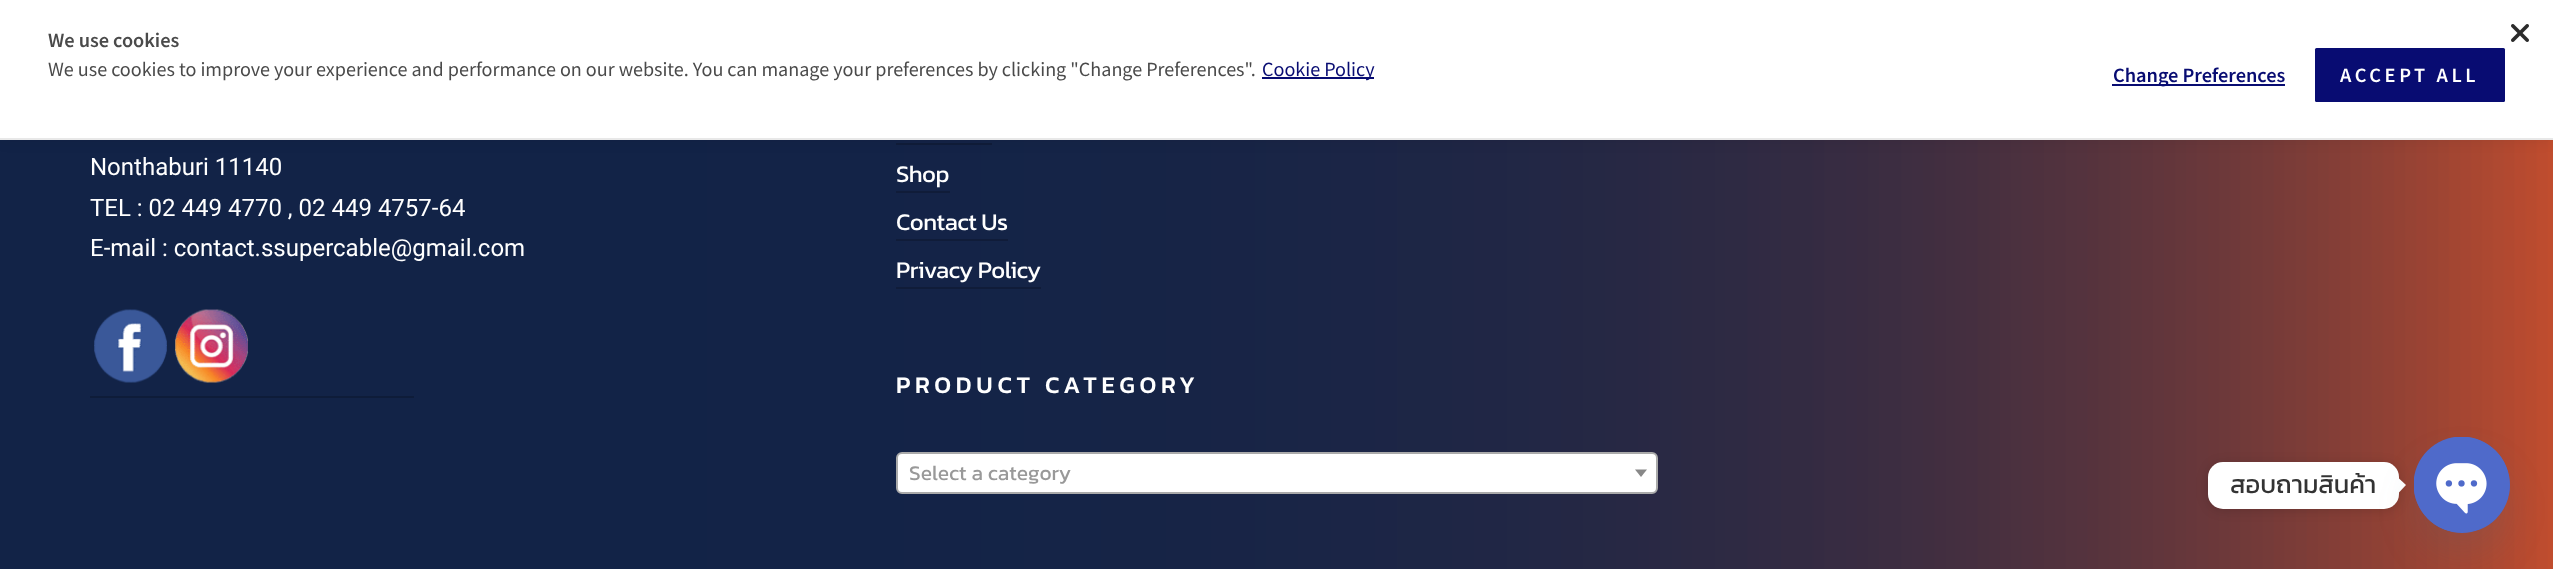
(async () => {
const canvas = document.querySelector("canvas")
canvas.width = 2553
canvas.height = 569
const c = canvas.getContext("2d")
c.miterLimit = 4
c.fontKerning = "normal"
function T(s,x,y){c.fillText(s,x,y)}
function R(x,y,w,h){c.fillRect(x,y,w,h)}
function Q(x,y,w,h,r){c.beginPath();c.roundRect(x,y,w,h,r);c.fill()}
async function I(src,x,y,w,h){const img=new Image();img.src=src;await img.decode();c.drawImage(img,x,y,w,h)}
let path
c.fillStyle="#fff"
R(0,0,2553,569)
await I("2.png",0,140,2553,429)
c.fillStyle="#101c39"
R(896,143,96,2)
c.fillStyle="#0000000d"
c.filter="blur(6px)"
c.beginPath()
c.rect(0,3,2553,140)
c.fill()
c.filter="none"
c.fillStyle="#fff"
R(0,0,2553,138)
c.fillStyle="#e8e8e8"
R(0,138,2553,2)
c.font="600 18px Noto Sans JP"
c.fillStyle="#4a4a4a"
T("We use cookies",48,47)
c.font="18px Noto Sans JP"
T("We use cookies to improve your experience and performance on our website. You can manage your preferences by clicking \"Change Preferences\".",48,76)
c.fillStyle="#080c72"
R(1262,77,112,2)
T("Cookie Policy",1262,76)
R(2112,84,173,2)
c.font="600 18px Noto Sans JP"
T("Change Preferences",2113,82)
Q(2315,48,190,54,1.5)
c.letterSpacing="3.6px"
c.fillStyle="#fff"
T("ACCEPT ALL",2340,82)
await I("1.png",2511,24,18,18)
c.letterSpacing="0px"
c.font="24px Roboto"
T("Nonthaburi 11140",90,175)
T("TEL : 02 449 4770 , 02 449 4757-64",90,216)
T("E-mail : contact.ssupercable@gmail.com",90,256)
await I("3.png",94,309,73,74)
await I("4.png",174,309,75,74)
c.fillStyle="#0e1c39"
R(90,396,324,2)
c.letterSpacing="-0.5px"
c.font="24px Kanit"
c.fillStyle="#fff"
T("Shop",896,182)
c.fillStyle="#101c39"
R(896,191,54,2)
c.fillStyle="#fff"
T("Contact Us",896,230)
c.fillStyle="#101c39"
R(896,239,112,2)
c.fillStyle="#fff"
T("Privacy Policy",896,278)
c.fillStyle="#101c39"
R(896,287,145,2)
c.letterSpacing="4.75px"
c.font="500 24px Kanit"
c.fillStyle="#fff"
T("PRODUCT CATEGORY",896,393)
c.beginPath()
c.roundRect(897,453,760,40,5)
c.fill()
c.strokeStyle="#aaa"
c.lineWidth=2
c.stroke()
c.letterSpacing="0px"
c.font="21px Kanit"
c.fillStyle="#999"
T("Select a category",909,480)
c.fillStyle="#888"
path = new Path2D("M1635 469.5h12l-6 7.5z")
c.fill(path)
c.fillStyle="#00000026"
c.filter="blur(6px)"
c.beginPath()
c.roundRect(2208,464,191,46,15)
c.fill()
c.filter="none"
c.fillStyle="#fff"
Q(2208,462,191,47,15)
c.font="25.5px Kanit"
c.fillStyle="#333"
T("สอบถามสินค้า",2230,493)
c.fillStyle="#fff"
path = new Path2D("M2398.5 493v-15l7.5 7z")
c.fill(path)
c.fillStyle="#49687e29"
c.filter="blur(18px)"
c.beginPath()
c.roundRect(2414,461,96,96,48)
c.fill()
c.filter="none"
c.fillStyle="#4f6aca"
c.beginPath()
c.arc(2462,485,48,0,7)
c.fill()
await I("5.png",2414,437,96,95)
})()
